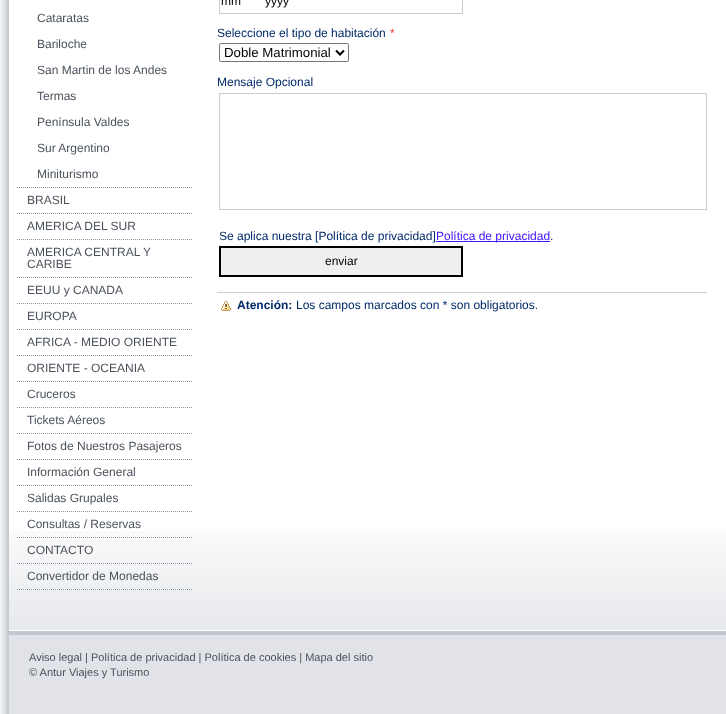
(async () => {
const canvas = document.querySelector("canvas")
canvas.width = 726
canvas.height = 714
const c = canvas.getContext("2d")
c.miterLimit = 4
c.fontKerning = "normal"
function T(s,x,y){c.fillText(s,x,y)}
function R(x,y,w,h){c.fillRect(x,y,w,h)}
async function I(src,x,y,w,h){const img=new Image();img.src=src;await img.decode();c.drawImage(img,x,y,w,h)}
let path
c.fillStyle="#f8fafa"
R(0,0,726,714)
await I("1.png",0,0,726,714)
await I("2.png",9,531,717,99)
await I("3.png",17,187,175,1)
c.font="12px Liberation Sans"
c.fillStyle="#4b525c"
T("Cataratas",37,22)
T("Bariloche",37,48)
T("San Martin de los Andes",37,74)
T("Termas",37,100)
T("Península Valdes",37,126)
T("Sur Argentino",37,152)
T("Miniturismo",37,178)
await I("3.png",17,213,175,1)
T("BRASIL",27,204)
await I("3.png",17,239,175,1)
T("AMERICA DEL SUR",27,230)
await I("3.png",17,277,175,1)
T("AMERICA CENTRAL Y",27,256)
T("CARIBE",27,268)
await I("3.png",17,303,175,1)
T("EEUU y CANADA",27,294)
await I("3.png",17,329,175,1)
T("EUROPA",27,320)
await I("3.png",17,355,175,1)
T("AFRICA - MEDIO ORIENTE",27,346)
await I("3.png",17,381,175,1)
T("ORIENTE - OCEANIA",27,372)
await I("3.png",17,407,175,1)
T("Cruceros",27,398)
await I("3.png",17,433,175,1)
T("Tickets Aéreos",27,424)
await I("3.png",17,459,175,1)
T("Fotos de Nuestros Pasajeros",27,450)
await I("3.png",17,485,175,1)
T("Información General",27,476)
await I("3.png",17,511,175,1)
T("Salidas Grupales",27,502)
await I("3.png",17,537,175,1)
T("Consultas / Reservas",27,528)
await I("3.png",17,563,175,1)
T("CONTACTO",27,554)
await I("3.png",17,589,175,1)
T("Convertidor de Monedas",27,580)
c.strokeStyle="#ccc"
c.strokeRect(219.5,-.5,243,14)
c.fillStyle="#000"
T("mm",221,5)
T("yyyy",265,5)
c.fillStyle="#002a69"
T("Seleccione el tipo de habitación",217,37)
c.fillStyle="#eb433e"
T("*",390,37)
c.beginPath()
c.roundRect(219.5,43.5,129,18,1.5)
c.strokeStyle="#767676"
c.stroke()
path = new Path2D("M336 50.5l4 4l4-4")
c.strokeStyle="#000"
c.lineWidth=2
c.stroke(path)
c.font="13.25px Liberation Sans"
c.fillStyle="#000"
T("Doble Matrimonial",224,57)
c.font="12px Liberation Sans"
c.fillStyle="#002a69"
T("Mensaje Opcional",217,86)
c.strokeStyle="#ccc"
c.lineWidth=1
c.strokeRect(219.5,93.5,487,116)
T("Se aplica nuestra [Política de privacidad]",219,240)
c.fillStyle="#4415ff"
R(436,241,114,1)
T("Política de privacidad",436,240)
c.fillStyle="#002a69"
T(".",550,240)
c.fillStyle="#efefef"
c.beginPath()
c.rect(220,247,242,29)
c.fill()
c.strokeStyle="#000"
c.lineWidth=2
c.stroke()
c.fillStyle="#000"
T("enviar",325,265)
await I("4.png",221,301,10,10)
c.fillStyle="#ccc"
R(217,292,490,1)
c.font="bold 12px Liberation Sans"
c.fillStyle="#002a69"
T("Atención:",237,309)
c.font="12px Liberation Sans"
T("Los campos marcados con * son obligatorios.",296,309)
await I("5.png",9,631,717,83)
c.font="11px Liberation Sans"
c.fillStyle="#4b525c"
T("Aviso legal | Política de privacidad | Política de cookies | Mapa del sitio",29,661)
T("© Antur Viajes y Turismo",29,676)
})()
